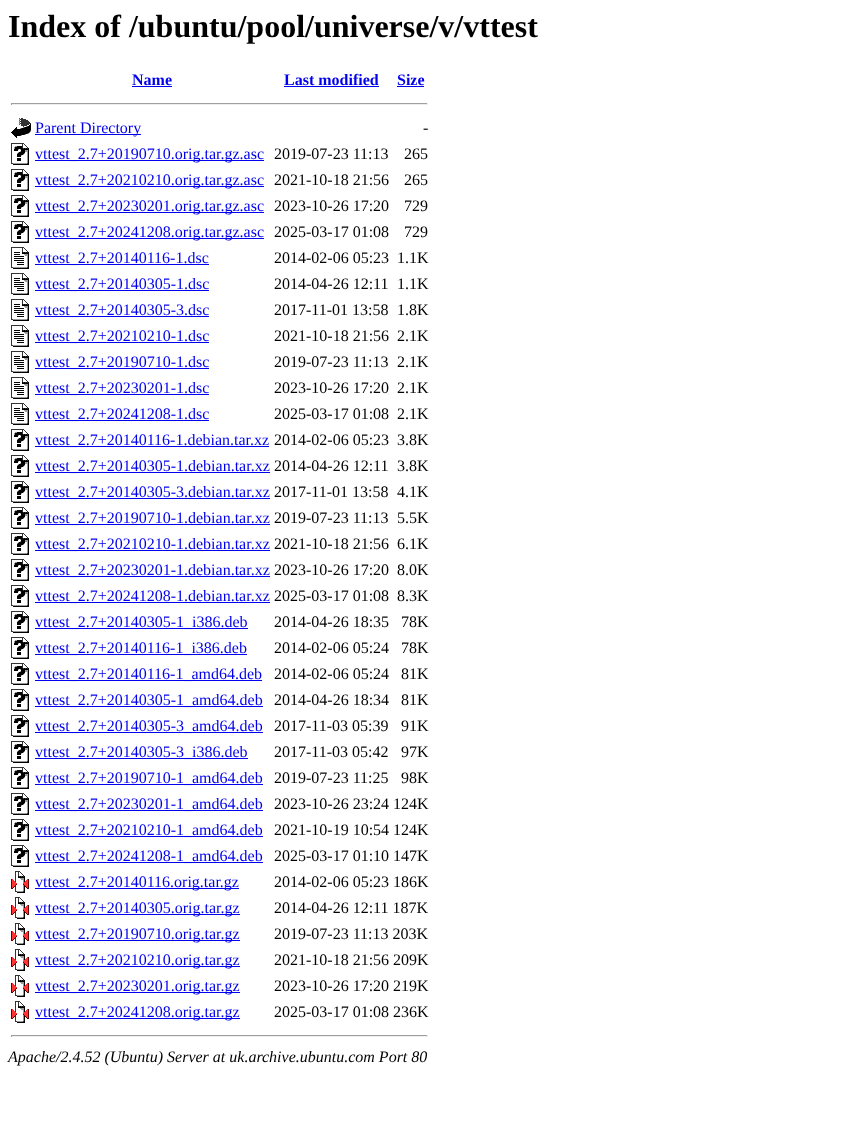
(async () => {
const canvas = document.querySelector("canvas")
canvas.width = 853
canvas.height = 1139
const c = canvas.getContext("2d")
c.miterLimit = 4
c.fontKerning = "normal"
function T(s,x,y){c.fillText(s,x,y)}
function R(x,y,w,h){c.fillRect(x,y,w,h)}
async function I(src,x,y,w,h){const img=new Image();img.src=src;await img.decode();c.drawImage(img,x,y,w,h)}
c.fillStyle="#fff"
R(0,0,853,1139)
c.font="bold 32px Liberation Serif"
c.fillStyle="#000"
T("Index of /ubuntu/pool/universe/v/vttest",8,37)
c.font="bold 16px Liberation Serif"
c.fillStyle="#00e"
T("Name",132,85)
R(132,86,40,1)
T("Last modified",284,85)
R(284,86,95,1)
T("Size",397,85)
R(397,86,27,1)
c.fillStyle="#9f9f9f"
R(11,103,417,1)
c.fillStyle="#eee"
R(427,103,1,2)
R(11,104,417,1)
c.fillStyle="#9f9f9f"
R(11,103,1,2)
await I("1.png",11,118,20,20)
c.fillStyle="#00e"
R(35,134,106,1)
c.font="16px Liberation Serif"
T("Parent Directory",35,133)
c.fillStyle="#000"
T("-",423,133)
await I("2.png",11,143,18,22)
c.fillStyle="#00e"
R(35,160,229,1)
T("vttest_2.7+20190710.orig.tar.gz.asc",35,159)
c.fillStyle="#000"
T("2019-07-23 11:13",274,159)
T("265",404,159)
await I("2.png",11,169,18,22)
c.fillStyle="#00e"
R(35,186,229,1)
T("vttest_2.7+20210210.orig.tar.gz.asc",35,185)
c.fillStyle="#000"
T("2021-10-18 21:56",274,185)
T("265",404,185)
await I("2.png",11,195,18,22)
c.fillStyle="#00e"
R(35,212,229,1)
T("vttest_2.7+20230201.orig.tar.gz.asc",35,211)
c.fillStyle="#000"
T("2023-10-26 17:20",274,211)
T("729",404,211)
await I("2.png",11,221,18,22)
c.fillStyle="#00e"
R(35,238,229,1)
T("vttest_2.7+20241208.orig.tar.gz.asc",35,237)
c.fillStyle="#000"
T("2025-03-17 01:08",274,237)
T("729",404,237)
await I("3.png",11,247,18,22)
c.fillStyle="#00e"
R(35,264,174,1)
T("vttest_2.7+20140116-1.dsc",35,263)
c.fillStyle="#000"
T("2014-02-06 05:23",274,263)
T("1.1K",397,263)
await I("3.png",11,273,18,22)
c.fillStyle="#00e"
R(35,290,174,1)
T("vttest_2.7+20140305-1.dsc",35,289)
c.fillStyle="#000"
T("2014-04-26 12:11",274,289)
T("1.1K",397,289)
await I("3.png",11,299,18,22)
c.fillStyle="#00e"
R(35,316,174,1)
T("vttest_2.7+20140305-3.dsc",35,315)
c.fillStyle="#000"
T("2017-11-01 13:58",274,315)
T("1.8K",397,315)
await I("3.png",11,325,18,22)
c.fillStyle="#00e"
R(35,342,174,1)
T("vttest_2.7+20210210-1.dsc",35,341)
c.fillStyle="#000"
T("2021-10-18 21:56",274,341)
T("2.1K",397,341)
await I("3.png",11,351,18,22)
c.fillStyle="#00e"
R(35,368,174,1)
T("vttest_2.7+20190710-1.dsc",35,367)
c.fillStyle="#000"
T("2019-07-23 11:13",274,367)
T("2.1K",397,367)
await I("3.png",11,377,18,22)
c.fillStyle="#00e"
R(35,394,174,1)
T("vttest_2.7+20230201-1.dsc",35,393)
c.fillStyle="#000"
T("2023-10-26 17:20",274,393)
T("2.1K",397,393)
await I("3.png",11,403,18,22)
c.fillStyle="#00e"
R(35,420,174,1)
T("vttest_2.7+20241208-1.dsc",35,419)
c.fillStyle="#000"
T("2025-03-17 01:08",274,419)
T("2.1K",397,419)
await I("2.png",11,429,18,22)
c.fillStyle="#00e"
R(35,446,234,1)
T("vttest_2.7+20140116-1.debian.tar.xz",35,445)
c.fillStyle="#000"
T("2014-02-06 05:23",274,445)
T("3.8K",397,445)
await I("2.png",11,455,18,22)
c.fillStyle="#00e"
R(35,472,235,1)
T("vttest_2.7+20140305-1.debian.tar.xz",35,471)
c.fillStyle="#000"
T("2014-04-26 12:11",274,471)
T("3.8K",397,471)
await I("2.png",11,481,18,22)
c.fillStyle="#00e"
R(35,498,235,1)
T("vttest_2.7+20140305-3.debian.tar.xz",35,497)
c.fillStyle="#000"
T("2017-11-01 13:58",274,497)
T("4.1K",397,497)
await I("2.png",11,507,18,22)
c.fillStyle="#00e"
R(35,524,235,1)
T("vttest_2.7+20190710-1.debian.tar.xz",35,523)
c.fillStyle="#000"
T("2019-07-23 11:13",274,523)
T("5.5K",397,523)
await I("2.png",11,533,18,22)
c.fillStyle="#00e"
R(35,550,235,1)
T("vttest_2.7+20210210-1.debian.tar.xz",35,549)
c.fillStyle="#000"
T("2021-10-18 21:56",274,549)
T("6.1K",397,549)
await I("2.png",11,559,18,22)
c.fillStyle="#00e"
R(35,576,235,1)
T("vttest_2.7+20230201-1.debian.tar.xz",35,575)
c.fillStyle="#000"
T("2023-10-26 17:20",274,575)
T("8.0K",397,575)
await I("2.png",11,585,18,22)
c.fillStyle="#00e"
R(35,602,235,1)
T("vttest_2.7+20241208-1.debian.tar.xz",35,601)
c.fillStyle="#000"
T("2025-03-17 01:08",274,601)
T("8.3K",397,601)
await I("2.png",11,611,18,22)
c.fillStyle="#00e"
R(35,628,213,1)
T("vttest_2.7+20140305-1_i386.deb",35,627)
c.fillStyle="#000"
T("2014-04-26 18:35",274,627)
T("78K",401,627)
await I("2.png",11,637,18,22)
c.fillStyle="#00e"
R(35,654,212,1)
T("vttest_2.7+20140116-1_i386.deb",35,653)
c.fillStyle="#000"
T("2014-02-06 05:24",274,653)
T("78K",401,653)
await I("2.png",11,663,18,22)
c.fillStyle="#00e"
R(35,680,227,1)
T("vttest_2.7+20140116-1_amd64.deb",35,679)
c.fillStyle="#000"
T("2014-02-06 05:24",274,679)
T("81K",401,679)
await I("2.png",11,689,18,22)
c.fillStyle="#00e"
R(35,706,228,1)
T("vttest_2.7+20140305-1_amd64.deb",35,705)
c.fillStyle="#000"
T("2014-04-26 18:34",274,705)
T("81K",401,705)
await I("2.png",11,715,18,22)
c.fillStyle="#00e"
R(35,732,228,1)
T("vttest_2.7+20140305-3_amd64.deb",35,731)
c.fillStyle="#000"
T("2017-11-03 05:39",274,731)
T("91K",401,731)
await I("2.png",11,741,18,22)
c.fillStyle="#00e"
R(35,758,213,1)
T("vttest_2.7+20140305-3_i386.deb",35,757)
c.fillStyle="#000"
T("2017-11-03 05:42",274,757)
T("97K",401,757)
await I("2.png",11,767,18,22)
c.fillStyle="#00e"
R(35,784,228,1)
T("vttest_2.7+20190710-1_amd64.deb",35,783)
c.fillStyle="#000"
T("2019-07-23 11:25",274,783)
T("98K",401,783)
await I("2.png",11,793,18,22)
c.fillStyle="#00e"
R(35,810,228,1)
T("vttest_2.7+20230201-1_amd64.deb",35,809)
c.fillStyle="#000"
T("2023-10-26 23:24 124K",274,809)
await I("2.png",11,819,18,22)
c.fillStyle="#00e"
R(35,836,228,1)
T("vttest_2.7+20210210-1_amd64.deb",35,835)
c.fillStyle="#000"
T("2021-10-19 10:54 124K",274,835)
await I("2.png",11,845,18,22)
c.fillStyle="#00e"
R(35,862,228,1)
T("vttest_2.7+20241208-1_amd64.deb",35,861)
c.fillStyle="#000"
T("2025-03-17 01:10 147K",274,861)
await I("4.png",11,871,18,22)
c.fillStyle="#00e"
R(35,888,204,1)
T("vttest_2.7+20140116.orig.tar.gz",35,887)
c.fillStyle="#000"
T("2014-02-06 05:23 186K",274,887)
await I("4.png",11,897,18,22)
c.fillStyle="#00e"
R(35,914,205,1)
T("vttest_2.7+20140305.orig.tar.gz",35,913)
c.fillStyle="#000"
T("2014-04-26 12:11 187K",274,913)
await I("4.png",11,923,18,22)
c.fillStyle="#00e"
R(35,940,205,1)
T("vttest_2.7+20190710.orig.tar.gz",35,939)
c.fillStyle="#000"
T("2019-07-23 11:13 203K",274,939)
await I("4.png",11,949,18,22)
c.fillStyle="#00e"
R(35,966,205,1)
T("vttest_2.7+20210210.orig.tar.gz",35,965)
c.fillStyle="#000"
T("2021-10-18 21:56 209K",274,965)
await I("4.png",11,975,18,22)
c.fillStyle="#00e"
R(35,992,205,1)
T("vttest_2.7+20230201.orig.tar.gz",35,991)
c.fillStyle="#000"
T("2023-10-26 17:20 219K",274,991)
await I("4.png",11,1001,18,22)
c.fillStyle="#00e"
R(35,1018,205,1)
T("vttest_2.7+20241208.orig.tar.gz",35,1017)
c.fillStyle="#000"
T("2025-03-17 01:08 236K",274,1017)
c.fillStyle="#9f9f9f"
R(11,1035,417,1)
c.fillStyle="#eee"
R(427,1035,1,2)
R(11,1036,417,1)
c.fillStyle="#9f9f9f"
R(11,1035,1,2)
c.font="italic 16px Liberation Serif"
c.fillStyle="#000"
T("Apache/2.4.52 (Ubuntu) Server at uk.archive.ubuntu.com Port 80",8,1062)
})()
